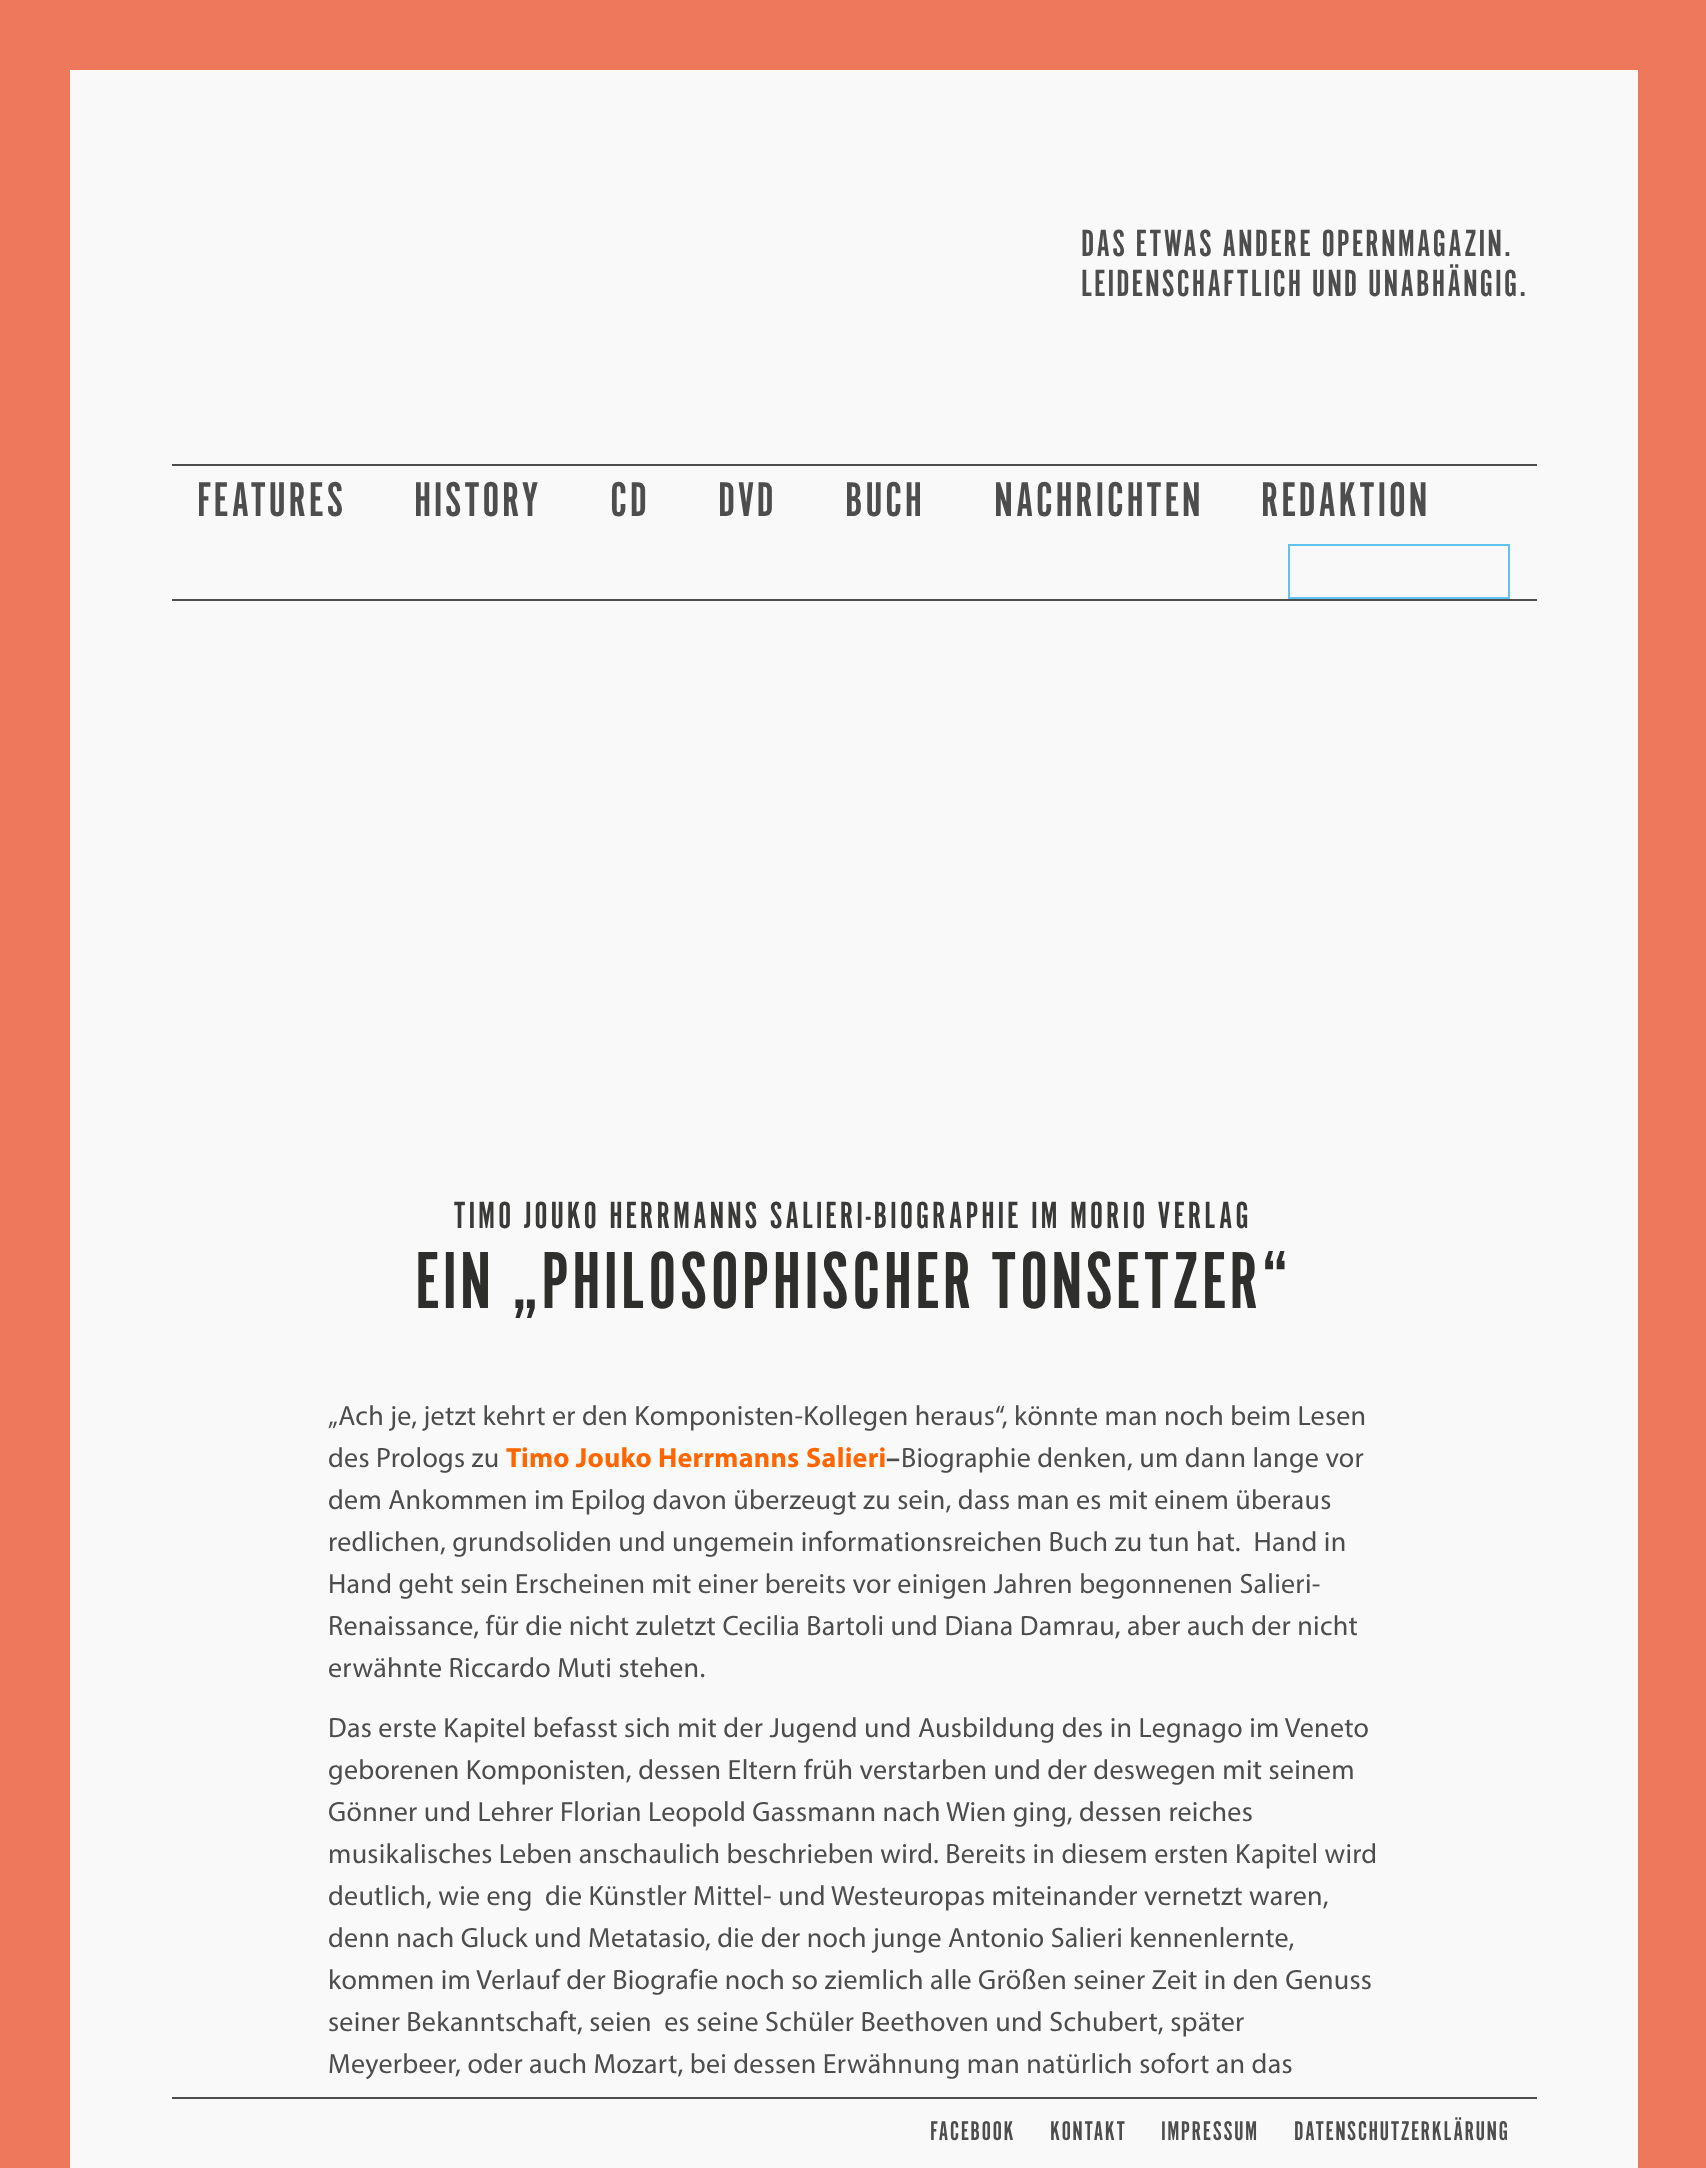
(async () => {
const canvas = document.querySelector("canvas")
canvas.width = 1706
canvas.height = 2168
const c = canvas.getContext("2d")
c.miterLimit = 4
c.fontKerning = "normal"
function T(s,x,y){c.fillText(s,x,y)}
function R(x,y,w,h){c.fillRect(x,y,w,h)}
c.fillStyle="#ee785c"
R(0,0,1706,2168)
c.fillStyle="#f9f9f9"
R(70,70,1568,2098)
c.letterSpacing="1.95px"
c.font="39.2px 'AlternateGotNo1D'"
c.fillStyle="#4d4d4d"
T("DAS ETWAS ANDERE OPERNMAGAZIN.",1081,256)
T("LEIDENSCHAFTLICH UND UNABHÄNGIG.",1081,296)
R(172,464,1365,2)
R(172,599,1365,2)
c.letterSpacing="2.5px"
c.font="50.5px 'AlternateGotNo1D'"
T("FEATURES",197,516)
T("HISTORY",414,516)
T("CD",610,516)
T("DVD",718,516)
T("BUCH",845,516)
T("NACHRICHTEN",994,516)
T("REDAKTION",1261,516)
c.strokeStyle="#5fc5ef"
c.lineWidth=2
c.strokeRect(1289,545,220,53)
c.letterSpacing="2.8px"
c.font="39.2px 'AlternateGotNo1D'"
c.fillStyle="#3a3a39"
T("TIMO JOUKO HERRMANNS SALIERI-BIOGRAPHIE IM MORIO VERLAG",454,1228)
c.font="84px 'AlternateGotNo1D'"
c.fillStyle="#2e2e2d"
T("EIN „PHILOSOPHISCHER TONSETZER“",415,1308)
c.letterSpacing="0.28px"
c.font="28px Myriad"
c.fillStyle="#4d4d4d"
T("„Ach je, jetzt kehrt er den Komponisten-Kollegen heraus“, könnte man noch beim Lesen",328,1425)
T("des Prologs zu",328,1467)
c.font="bold 28px Myriad"
c.fillStyle="#f60"
T("Timo Jouko Herrmanns",506,1467)
T("Salieri",806,1467)
c.fillStyle="#4d4d4d"
T("–",886,1467)
c.font="28px Myriad"
T("Biographie denken, um dann lange vor",901,1467)
T("dem Ankommen im Epilog davon überzeugt zu sein, dass man es mit einem überaus",328,1509)
T("redlichen, grundsoliden und ungemein informationsreichen Buch zu tun hat.  Hand in",328,1551)
T("Hand geht sein Erscheinen mit einer bereits vor einigen Jahren begonnenen Salieri-",328,1593)
T("Renaissance, für die nicht zuletzt Cecilia Bartoli und Diana Damrau, aber auch der nicht",328,1635)
T("erwähnte Riccardo Muti stehen.",328,1677)
T("Das erste Kapitel befasst sich mit der Jugend und Ausbildung des in Legnago im Veneto",328,1737)
T("geborenen Komponisten, dessen Eltern früh verstarben und der deswegen mit seinem",328,1779)
T("Gönner und Lehrer Florian Leopold Gassmann nach Wien ging, dessen reiches",328,1821)
T("musikalisches Leben anschaulich beschrieben wird. Bereits in diesem ersten Kapitel wird",328,1863)
T("deutlich, wie eng  die Künstler Mittel- und Westeuropas miteinander vernetzt waren,",328,1905)
T("denn nach Gluck und Metatasio, die der noch junge Antonio Salieri kennenlernte,",328,1947)
T("kommen im Verlauf der Biografie noch so ziemlich alle Größen seiner Zeit in den Genuss",328,1989)
T("seiner Bekanntschaft, seien  es seine Schüler Beethoven und Schubert, später",328,2031)
T("Meyerbeer, oder auch Mozart, bei dessen Erwähnung man natürlich sofort an das",328,2073)
R(172,2097,1365,2)
c.letterSpacing="1.4px"
c.font="28px 'AlternateGotNo1D'"
T("FACEBOOK",930,2140)
T("KONTAKT",1050,2140)
T("IMPRESSUM",1161,2140)
T("DATENSCHUTZERKLÄRUNG",1294,2140)
})()
